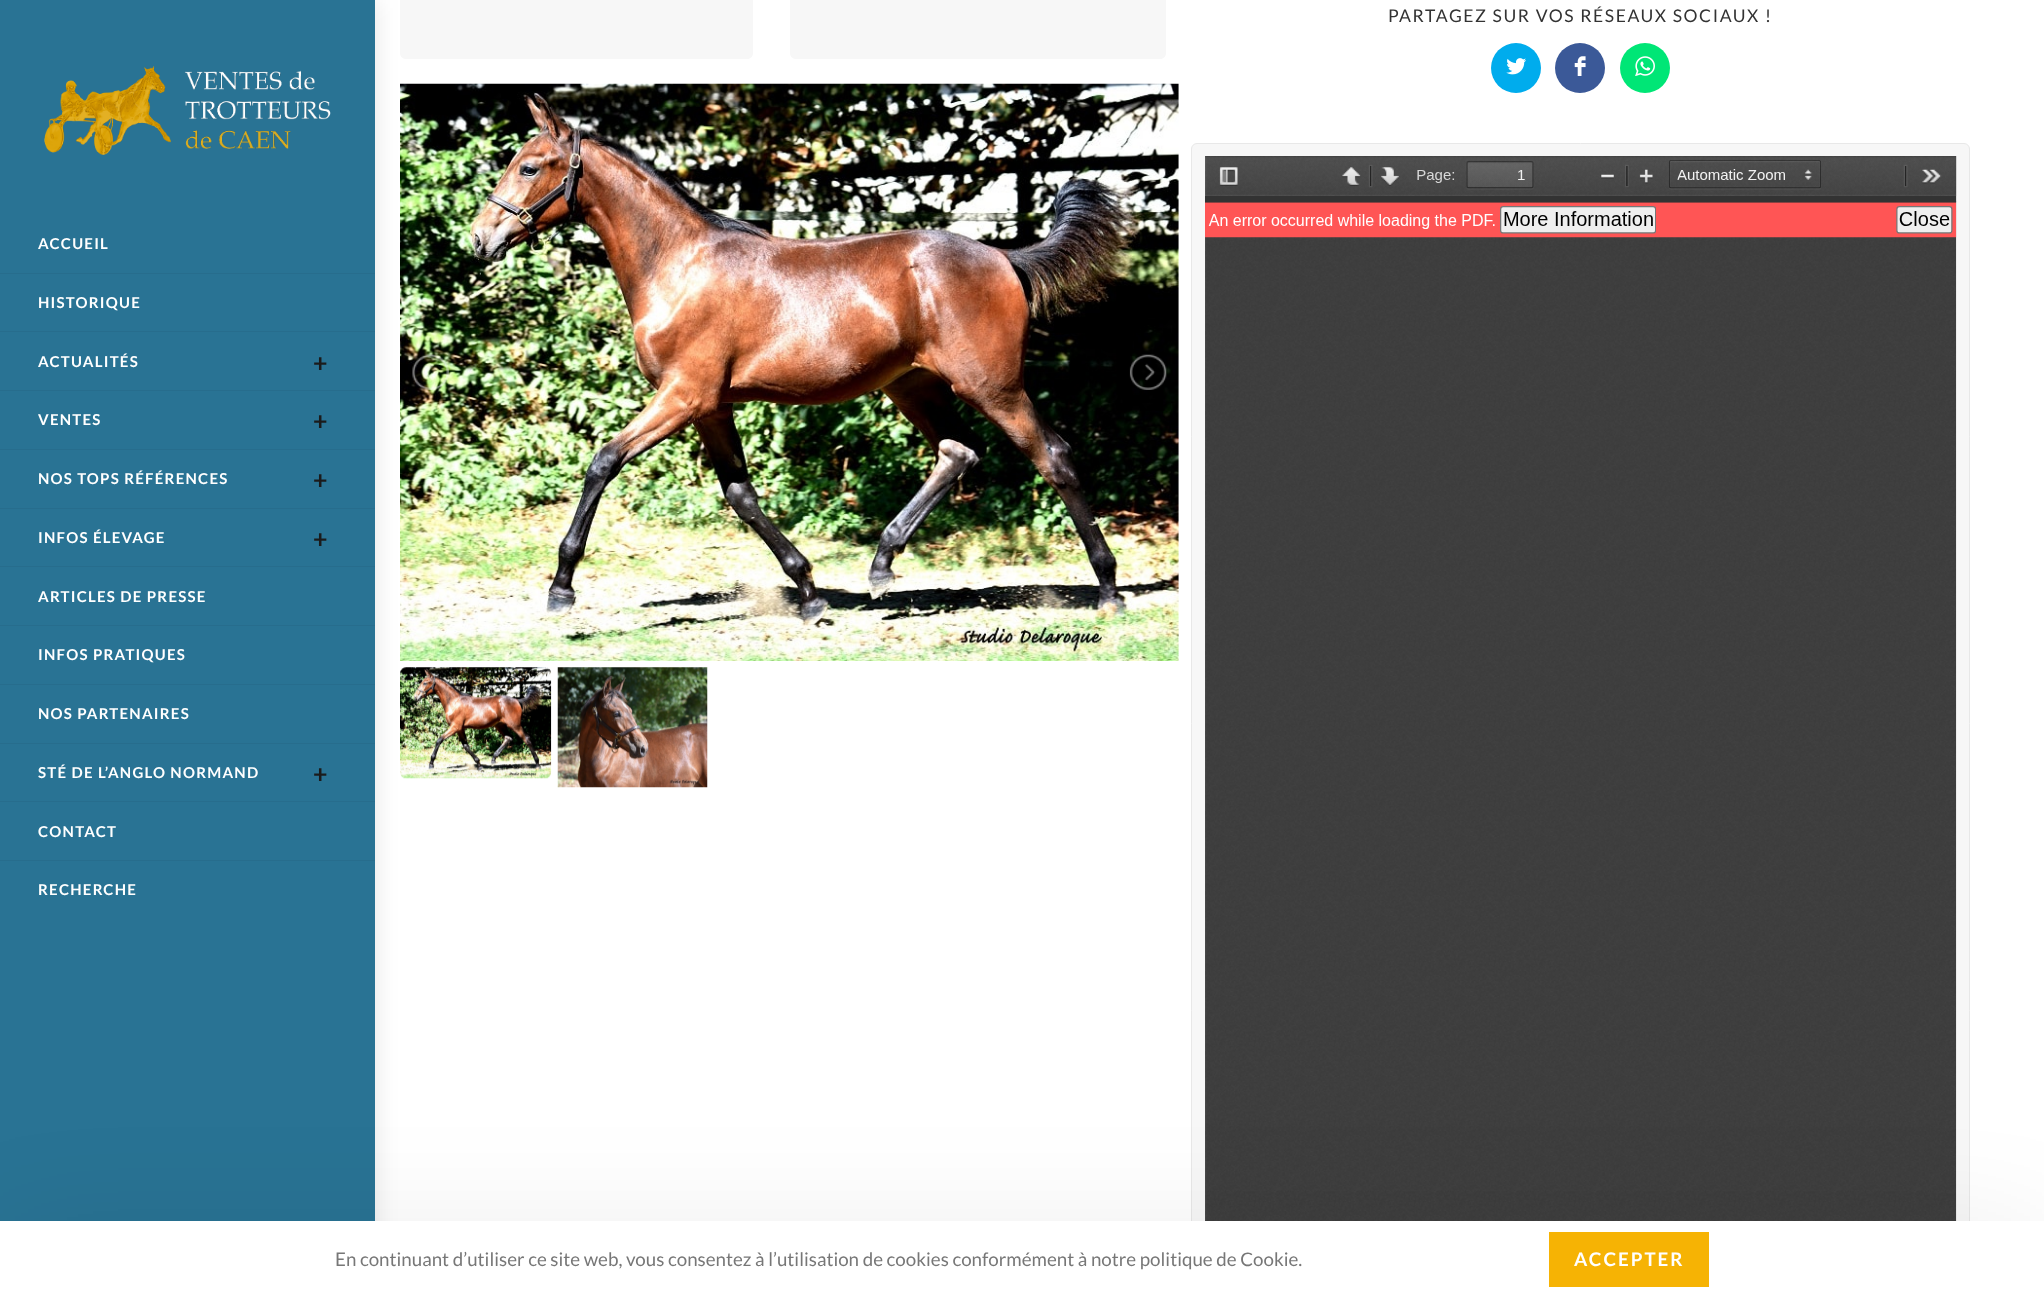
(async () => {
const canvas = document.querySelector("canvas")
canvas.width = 2044
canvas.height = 1297
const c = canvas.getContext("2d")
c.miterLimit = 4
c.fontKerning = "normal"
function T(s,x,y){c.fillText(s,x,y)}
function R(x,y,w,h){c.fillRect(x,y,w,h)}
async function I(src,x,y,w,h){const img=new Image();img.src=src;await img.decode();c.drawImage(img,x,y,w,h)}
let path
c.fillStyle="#fff"
R(0,0,2044,1297)
c.fillStyle="#f7f7f7"
path = new Path2D("M400-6h353v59c0 3.5-2.5 6-6 6h-341c-3.5 0-6-2.5-6-6z")
c.fill(path)
path = new Path2D("M790-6h376v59c0 3.5-2.5 6-6 6h-364c-3.5 0-6-2.5-6-6z")
c.fill(path)
await I("1.png",400,83,779,578)
await I("2.png",412,354,37,36)
await I("3.png",1129,354,38,36)
await I("4.png",400,667,152,112)
await I("5.png",557,667,151,121)
c.letterSpacing="1.6px"
c.font="17.5px Lato"
c.fillStyle="#333"
T("PARTAGEZ SUR VOS RÉSEAUX SOCIAUX !",1388,22)
c.fillStyle="#00aced"
c.beginPath()
c.arc(1516,68,25,0,7)
c.fill()
await I("6.png",1506,58,20,17)
c.fillStyle="#3b5998"
c.beginPath()
c.arc(1580,68,25,0,7)
c.fill()
await I("7.png",1574,56,12,20)
c.fillStyle="#00e676"
c.beginPath()
c.arc(1645,68,25,0,7)
c.fill()
await I("8.png",1635,56,20,20)
c.fillStyle="#f7f7f7"
c.beginPath()
c.roundRect(1191.5,143.5,778,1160,5.5)
c.fill()
c.strokeStyle="#e8e8e8"
c.stroke()
await I("9.png",1205,156,752,1065)
c.fillStyle="#0000001a"
c.filter="blur(12.5px)"
c.beginPath()
c.rect(0,0,375,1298)
c.fill()
c.filter="none"
c.fillStyle="#297394"
R(0,0,375,1221)
await I("10.png",44,66,287,89)
c.fillStyle="#276d8d"
R(0,273,375,1)
c.letterSpacing="1.25px"
c.font="bold 15px Lato"
c.fillStyle="#fff"
T("ACCUEIL",38,249)
c.fillStyle="#276d8d"
R(0,331,375,1)
c.fillStyle="#fff"
T("HISTORIQUE",38,308)
c.fillStyle="#276d8d"
R(0,390,375,1)
c.fillStyle="#fff"
T("ACTUALITÉS",38,367)
c.font="bold 25px Lato"
c.fillStyle="#1b1b1b"
T("+",313,372)
c.fillStyle="#276d8d"
R(0,449,375,1)
c.font="bold 15px Lato"
c.fillStyle="#fff"
T("VENTES",38,425)
c.font="bold 25px Lato"
c.fillStyle="#1b1b1b"
T("+",313,430)
c.fillStyle="#276d8d"
R(0,508,375,1)
c.font="bold 15px Lato"
c.fillStyle="#fff"
T("NOS TOPS RÉFÉRENCES",38,484)
c.font="bold 25px Lato"
c.fillStyle="#1b1b1b"
T("+",313,489)
c.fillStyle="#276d8d"
R(0,566,375,1)
c.font="bold 15px Lato"
c.fillStyle="#fff"
T("INFOS ÉLEVAGE",38,543)
c.font="bold 25px Lato"
c.fillStyle="#1b1b1b"
T("+",313,548)
c.fillStyle="#276d8d"
R(0,625,375,1)
c.font="bold 15px Lato"
c.fillStyle="#fff"
T("ARTICLES DE PRESSE",38,602)
c.fillStyle="#276d8d"
R(0,684,375,1)
c.fillStyle="#fff"
T("INFOS PRATIQUES",38,660)
c.fillStyle="#276d8d"
R(0,743,375,1)
c.fillStyle="#fff"
T("NOS PARTENAIRES",38,719)
c.fillStyle="#276d8d"
R(0,801,375,1)
c.fillStyle="#fff"
T("STÉ DE L’ANGLO NORMAND",38,778)
c.font="bold 25px Lato"
c.fillStyle="#1b1b1b"
T("+",313,783)
c.fillStyle="#276d8d"
R(0,860,375,1)
c.font="bold 15px Lato"
c.fillStyle="#fff"
T("CONTACT",38,837)
T("RECHERCHE",38,895)
c.fillStyle="#0000001a"
c.filter="blur(62.5px)"
c.beginPath()
c.rect(0,1246,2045,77)
c.fill()
c.filter="none"
c.fillStyle="#fff"
R(0,1221,2044,76)
c.letterSpacing="0px"
c.font="18.75px Lato"
c.fillStyle="#777"
T("En continuant d’utiliser ce site web, vous consentez à l’utilisation de cookies conformément à notre politique de Cookie.",335,1266)
c.fillStyle="#f6b304"
R(1549,1232,160,55)
c.letterSpacing="2px"
c.font="bold 18.75px Lato"
c.fillStyle="#fff"
T("ACCEPTER",1574,1266)
})()
